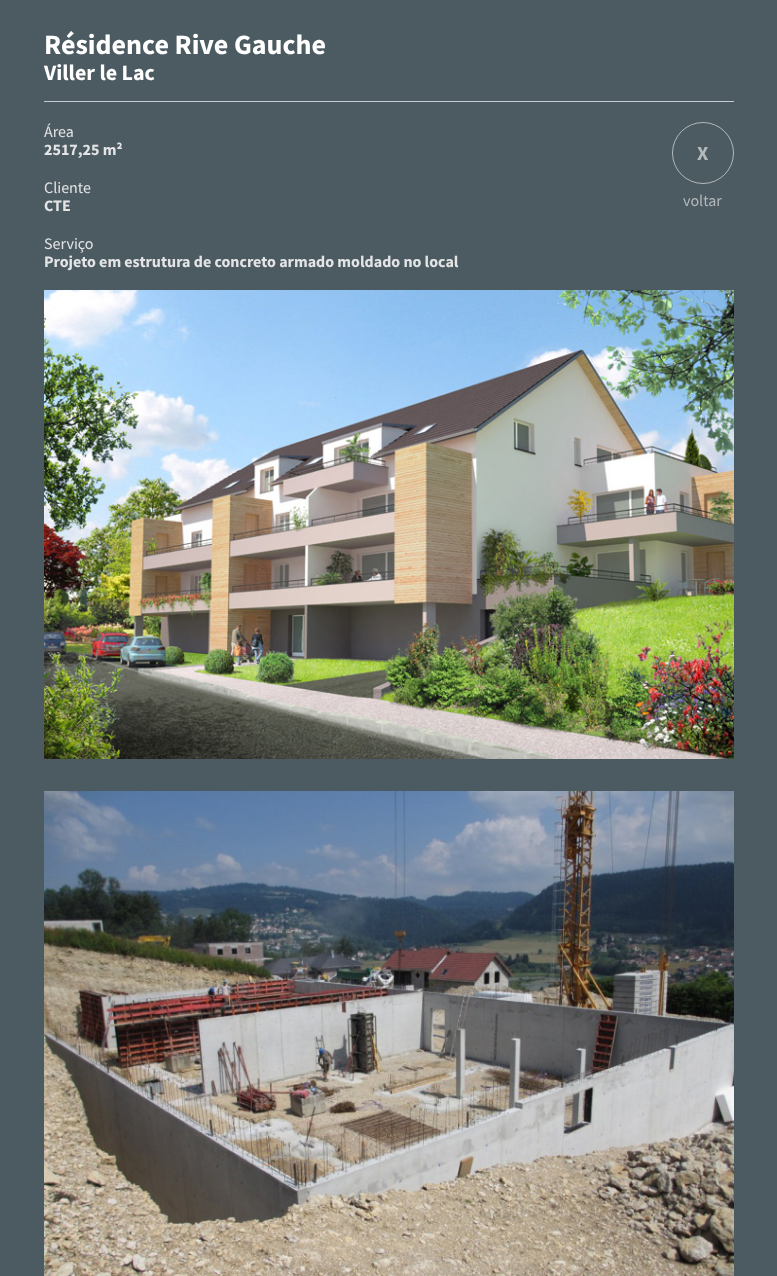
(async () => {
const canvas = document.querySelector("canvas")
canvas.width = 777
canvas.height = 1276
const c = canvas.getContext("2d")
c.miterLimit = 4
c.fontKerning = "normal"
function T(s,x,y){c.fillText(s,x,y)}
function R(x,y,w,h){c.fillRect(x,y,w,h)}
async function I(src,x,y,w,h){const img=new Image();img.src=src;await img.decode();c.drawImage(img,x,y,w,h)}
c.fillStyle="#4c5a61"
R(0,0,777,1276)
c.fillStyle="#c6cbcd"
R(44,101,690,1)
c.font="bold 28px Source Sans Pro"
c.fillStyle="#fff"
T("Résidence Rive Gauche",44,54)
c.font="bold 22px Source Sans Pro"
T("Viller le Lac",44,80)
c.font="16px Source Sans Pro"
c.fillStyle="#e3e4e5"
T("Área",44,137)
c.font="bold 16px Source Sans Pro"
T("2517,25 m²",44,155)
c.font="16px Source Sans Pro"
T("Cliente",44,193)
c.font="bold 16px Source Sans Pro"
T("CTE",44,211)
c.font="16px Source Sans Pro"
T("Serviço",44,249)
c.font="bold 16px Source Sans Pro"
T("Projeto em estrutura de concreto armado moldado no local",44,267)
c.beginPath()
c.arc(703,153,30.5,0,7)
c.strokeStyle="#b4b9bb"
c.stroke()
c.font="bold 20px Source Sans Pro"
c.fillStyle="#b4b9bb"
T("X",697,160)
c.font="16px Source Sans Pro"
T("voltar",683,206)
await I("1.png",44,290,690,469)
await I("2.png",44,791,690,485)
})()
